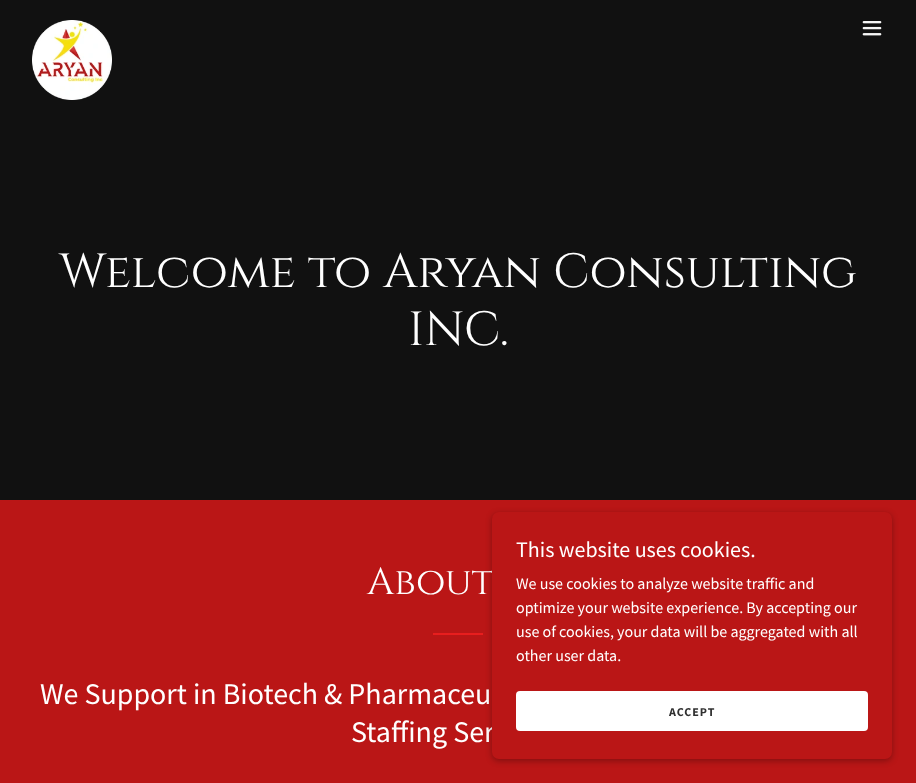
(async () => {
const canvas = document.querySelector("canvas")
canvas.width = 916
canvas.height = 783
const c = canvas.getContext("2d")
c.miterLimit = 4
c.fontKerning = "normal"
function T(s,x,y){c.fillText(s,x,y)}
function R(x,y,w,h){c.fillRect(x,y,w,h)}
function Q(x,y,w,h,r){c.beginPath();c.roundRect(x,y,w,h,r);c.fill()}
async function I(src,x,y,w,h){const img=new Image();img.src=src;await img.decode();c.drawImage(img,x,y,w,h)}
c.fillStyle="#ba1616"
R(0,0,916,783)
c.fillStyle="#111"
R(0,0,916,500)
await I("1.png",32,20,80,80)
await I("2.png",862,21,20,15)
c.font="48px Cinzel"
c.fillStyle="#fff"
T("Welcome to Aryan Consulting",59,287)
T("INC.",408,345)
c.font="38px Cinzel"
T("About",367,594)
c.fillStyle="#e81e1e"
R(433,633,50,2)
c.font="30px Source Sans Pro"
c.fillStyle="#fff"
T("We Support in Biotech & Pharmaceu",40,704)
T("Staffing Ser",351,742)
c.fillStyle="#0000004d"
c.filter="blur(3px)"
c.beginPath()
c.roundRect(492,514,400,247,7)
c.fill()
c.filter="none"
c.fillStyle="#ba1616"
Q(492,512,400,247,7)
c.font="22px Source Sans Pro"
c.fillStyle="#fff"
T("This website uses cookies.",516,557)
c.font="16px Source Sans Pro"
T("We use cookies to analyze website traffic and",516,589)
T("optimize your website experience. By accepting our",516,613)
T("use of cookies, your data will be aggregated with all",516,637)
T("other user data.",516,661)
Q(516,691,352,40,4)
c.letterSpacing="1px"
c.font="bold 12px Source Sans Pro"
c.fillStyle="#303030"
T("ACCEPT",669,716)
})()
